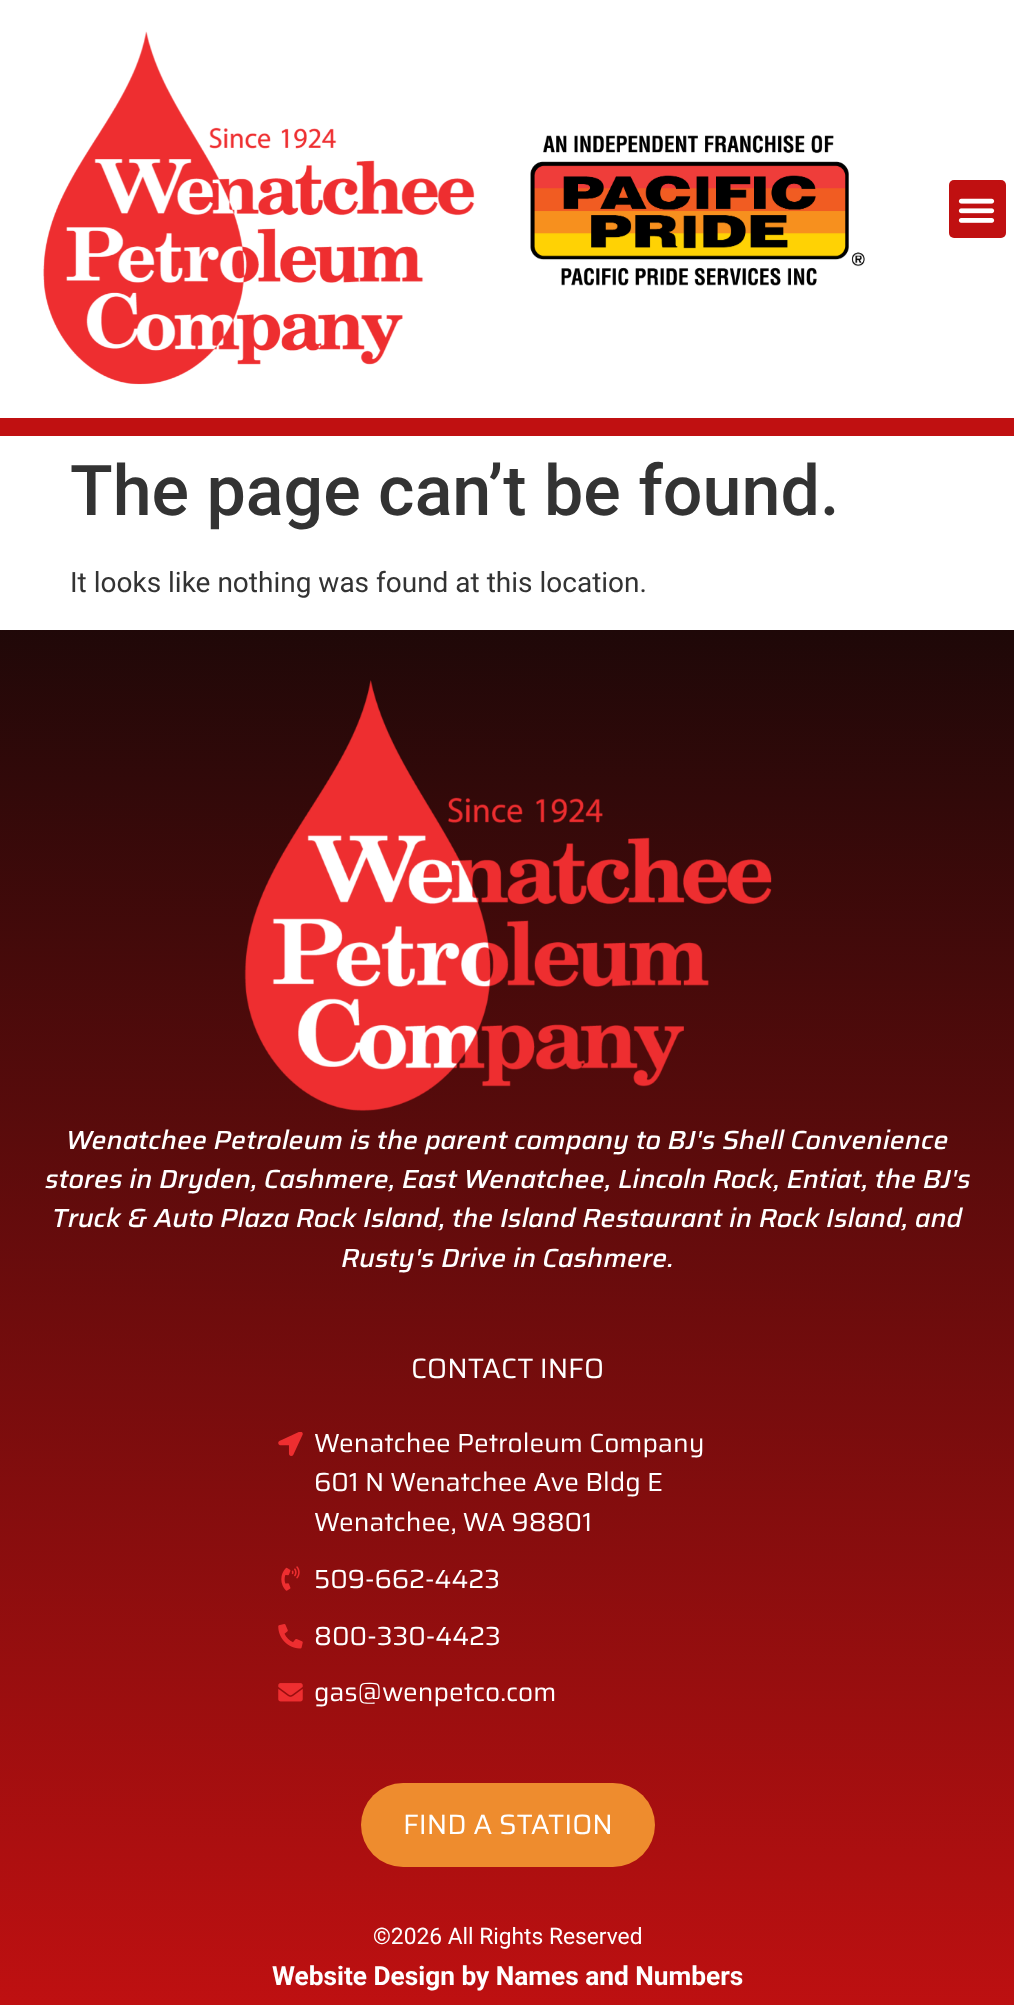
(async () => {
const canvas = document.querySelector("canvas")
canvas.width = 1014
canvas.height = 2005
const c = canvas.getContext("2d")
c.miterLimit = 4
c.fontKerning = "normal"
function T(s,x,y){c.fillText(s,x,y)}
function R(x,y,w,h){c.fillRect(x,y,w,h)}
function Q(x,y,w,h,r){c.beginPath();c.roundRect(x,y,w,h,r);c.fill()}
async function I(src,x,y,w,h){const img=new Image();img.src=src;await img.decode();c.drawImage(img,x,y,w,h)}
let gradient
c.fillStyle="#fff"
R(0,0,1014,2005)
c.fillStyle="#c01011"
R(0,418,1014,18)
await I("1.png",43,31,432,354)
await I("2.png",530,135,335,151)
Q(949,180,57,58,5)
await I("3.png",958,198,37,25)
c.font="500 70px Roboto"
c.fillStyle="#333"
T("The page can’t be found.",70,515)
c.font="28px Roboto"
T("It looks like nothing was found at this location.",70,592)
gradient = c.createLinearGradient(520,621,495,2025)
gradient.addColorStop(0,"#1e0808")
gradient.addColorStop(1,"#c01011")
c.fillStyle = gradient
R(0,630,1014,1375)
await I("4.png",244,680,528,431)
c.font="italic 500 26.25px Saira"
c.fillStyle="#fff"
T("Wenatchee Petroleum is the parent company to BJ's Shell Convenience",66,1149)
T("stores in Dryden, Cashmere, East Wenatchee, Lincoln Rock, Entiat, the BJ's",45,1188)
T("Truck & Auto Plaza Rock Island, the Island Restaurant in Rock Island, and",52,1227)
T("Rusty's Drive in Cashmere.",341,1267)
c.font="28px Saira"
T("CONTACT INFO",411,1378)
await I("5.png",278,1432,25,24)
c.font="26.25px Saira"
T("Wenatchee Petroleum Company",314,1452)
T("601 N Wenatchee Ave Bldg E",314,1491)
T("Wenatchee, WA 98801",314,1531)
await I("6.png",281,1566,19,25)
T("509-662-4423",314,1588)
await I("7.png",278,1624,25,25)
T("800-330-4423",314,1645)
await I("8.png",278,1683,25,19)
T("gas@wenpetco.com",314,1701)
c.fillStyle="#ee8c2e"
Q(361,1783,294,84,42)
c.font="28px Saira"
c.fillStyle="#fff"
T("FIND A STATION",403,1834)
c.font="22.75px Roboto"
T("©2026 All Rights Reserved",373,1944)
c.font="bold 26.25px Roboto"
T("Website Design by Names and Numbers",272,1985)
})()
